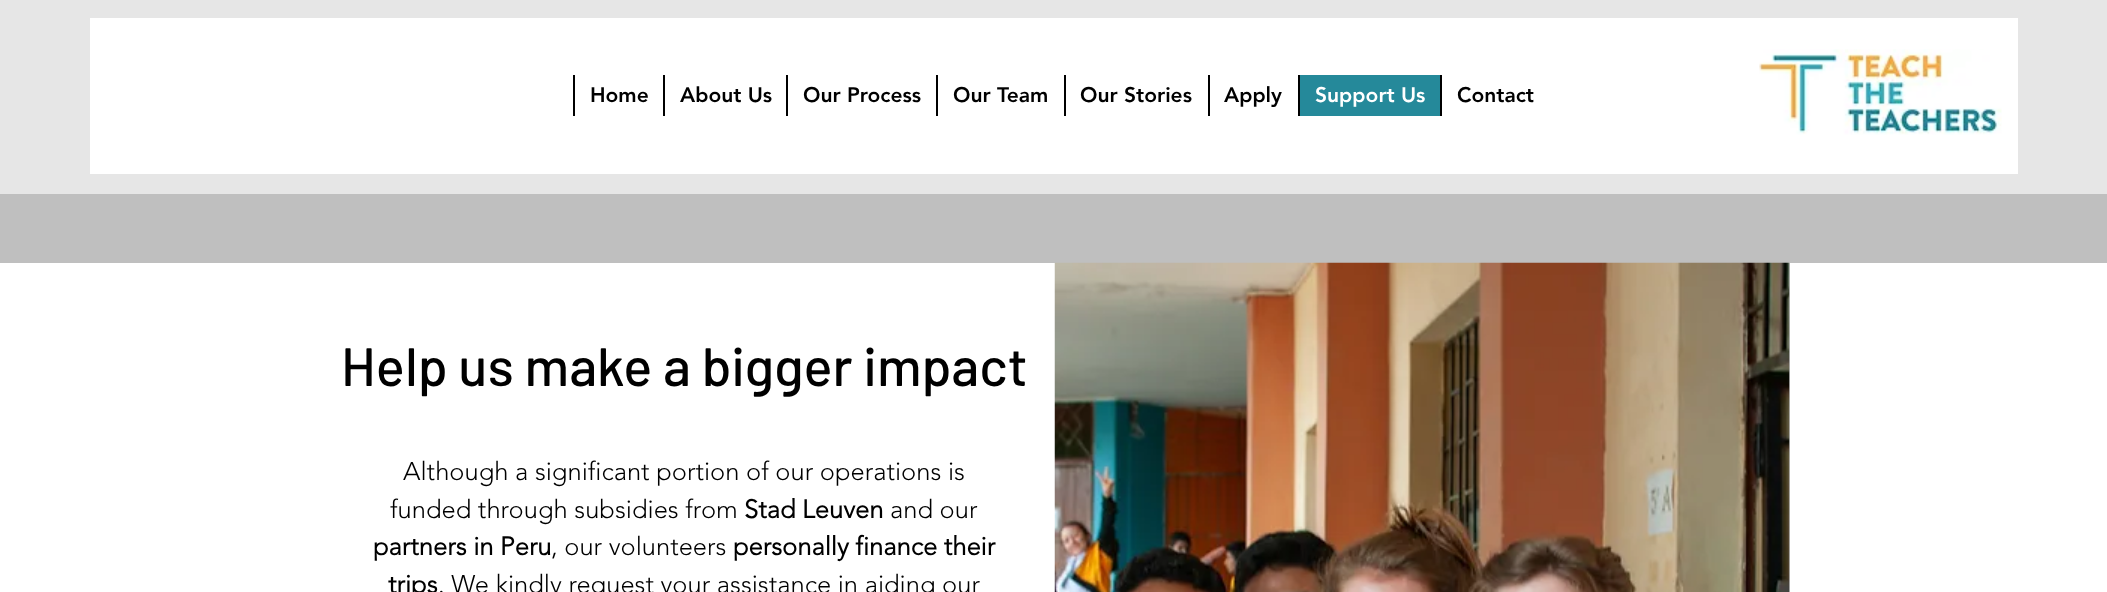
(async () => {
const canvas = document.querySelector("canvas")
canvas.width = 2107
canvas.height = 592
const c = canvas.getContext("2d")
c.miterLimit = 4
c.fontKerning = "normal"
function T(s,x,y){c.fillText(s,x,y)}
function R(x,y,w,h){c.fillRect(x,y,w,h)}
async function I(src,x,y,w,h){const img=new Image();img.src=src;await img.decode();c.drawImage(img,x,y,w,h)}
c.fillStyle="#bfbfbf"
R(0,0,2107,592)
c.fillStyle="#e6e6e6"
R(0,0,2107,194)
c.fillStyle="#fff"
R(90,18,1928,156)
c.fillStyle="#000"
R(573,75,2,41)
c.font="900 21px 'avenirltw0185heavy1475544'"
T("Home",590,102)
R(663,75,2,41)
T("About Us",680,102)
R(786,75,2,41)
T("Our Process",803,102)
R(936,75,2,41)
T("Our Team",953,102)
R(1064,75,2,41)
T("Our Stories",1080,102)
R(1208,75,2,41)
T("Apply",1224,102)
c.fillStyle="#25899a"
R(1300,75,140,41)
c.fillStyle="#000"
R(1298,75,2,41)
c.fillStyle="#fff"
T("Support Us",1315,102)
c.fillStyle="#000"
R(1440,75,2,41)
T("Contact",1457,102)
await I("1.png",1759,49,243,86)
c.fillStyle="#fff"
R(0,263,2107,329)
c.font="500 54px Barlow"
c.fillStyle="#000"
T("Help us make a bigger impact",341,386)
c.font="300 25.5px 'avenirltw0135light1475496'"
T("Although a significant portion of our operations is",403,480)
T("funded through subsidies from",390,518)
c.font="bold 25.5px 'avenirltw0135light1475496'"
T("Stad Leuven",744,518)
c.font="300 25.5px 'avenirltw0135light1475496'"
T("and our",890,518)
c.font="bold 25.5px 'avenirltw0135light1475496'"
T("partners in Peru",373,555)
c.font="300 25.5px 'avenirltw0135light1475496'"
T(", our volunteers",551,555)
c.font="bold 25.5px 'avenirltw0135light1475496'"
T("personally finance their",733,555)
T("trips",388,593)
c.font="300 25.5px 'avenirltw0135light1475496'"
T(". We kindly request your assistance in aiding our",438,593)
c.fillStyle="#bfbfbf"
R(1789,263,1,329)
await I("2.png",1054,262,736,330)
})()
